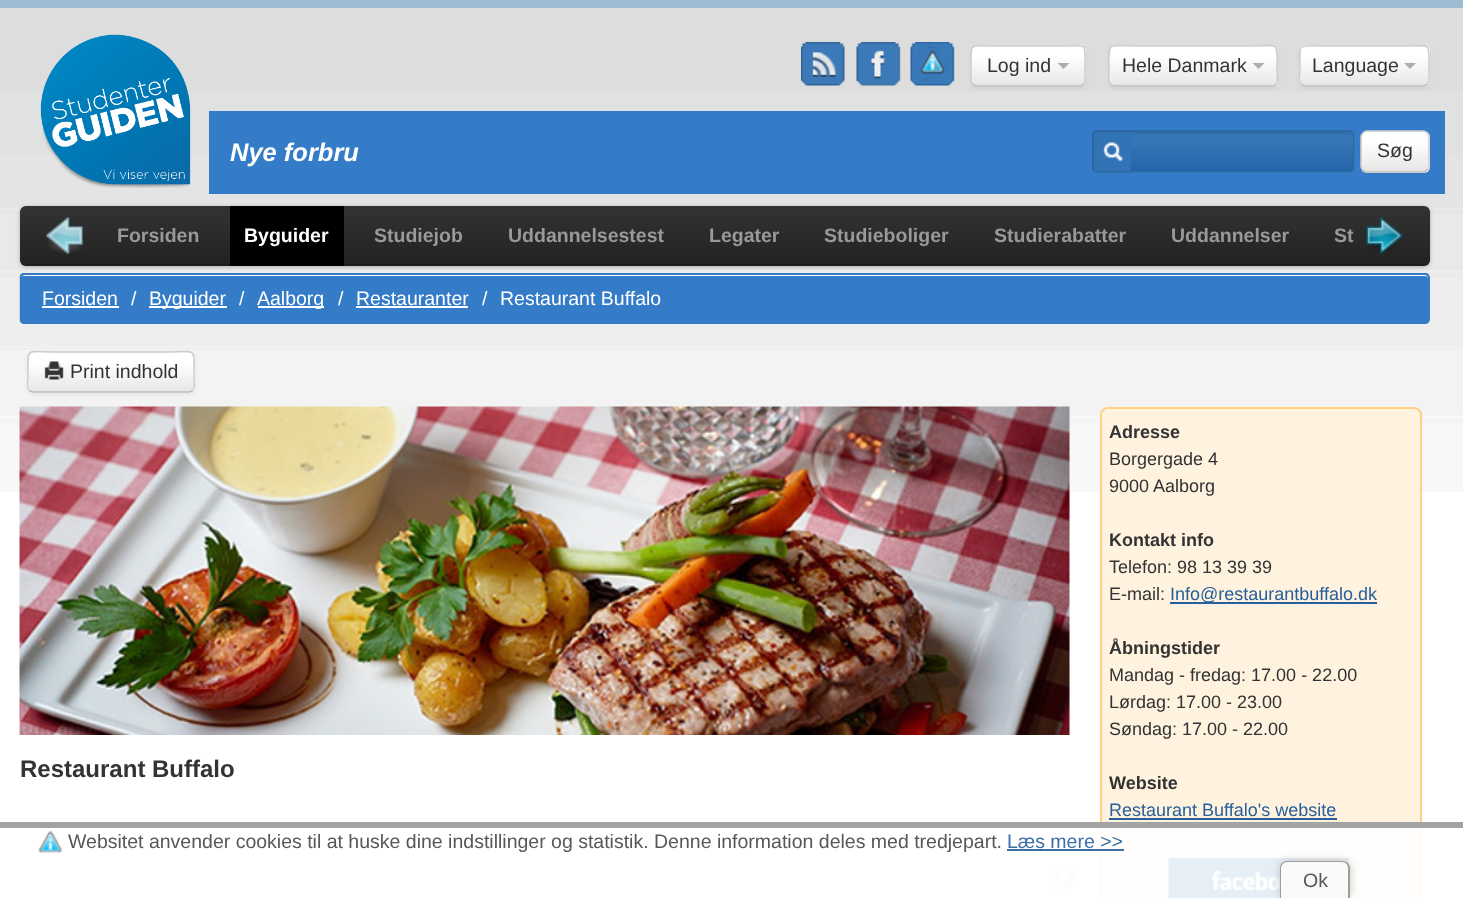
(async () => {
const canvas = document.querySelector("canvas")
canvas.width = 1463
canvas.height = 898
const c = canvas.getContext("2d")
c.miterLimit = 4
c.fontKerning = "normal"
function T(s,x,y){c.fillText(s,x,y)}
function R(x,y,w,h){c.fillRect(x,y,w,h)}
function Q(x,y,w,h,r){c.beginPath();c.roundRect(x,y,w,h,r);c.fill()}
async function I(src,x,y,w,h){const img=new Image();img.src=src;await img.decode();c.drawImage(img,x,y,w,h)}
let gradient, path
c.fillStyle="#fff"
R(0,0,1463,898)
await I("1.png",0,8,1463,484)
c.fillStyle="#9bbcd1"
R(0,0,1463,8)
await I("2.png",40,34,151,154)
await I("3.png",801,42,44,44)
await I("4.png",856,42,45,44)
await I("5.png",910,42,45,44)
c.fillStyle="#0000000d"
c.filter="blur(1.5px)"
c.beginPath()
c.roundRect(971,47,115,42,6)
c.fill()
c.filter="none"
c.fillStyle="#fafafa"
Q(971,45,115,42,6)
c.save()
c.beginPath()
c.roundRect(971,45,115,42,6)
c.clip()
gradient = c.createLinearGradient(1028,46,1028,86)
gradient.addColorStop(0,"#fff")
gradient.addColorStop(.25,"#fff")
gradient.addColorStop(1,"#e6e6e6")
c.fillStyle = gradient
R(972,47,113,39)
c.restore()
c.fillStyle="#ffffff33"
path = new Path2D("M976 48h104c2 0 4 2 4 4v30l-1 3c1-1 2-3 2-4v-29c0-3-2-5-5-5h-103c-3 0-5 2-5 5c0-2 2-4 4-4z")
c.fill(path)
path = new Path2D("M1083.5 84.5l-3 1.5h-104.5l-3-1.5")
c.strokeStyle="#bbb"
c.lineWidth=1.5
c.stroke(path)
path = new Path2D("M973 84.5c-2.5-2-2-5.5-2-8.5v-10c0-23.5-2.5-20 23-20h69c25 0 22-3.5 22 20v10c0 3 1 6.5-1.5 8.5")
c.strokeStyle="#ccc"
c.stroke(path)
c.font="19.5px Liberation Sans"
c.fillStyle="#333"
T("Log ind",987,72)
c.fillStyle="#0000004d"
path = new Path2D("M1057.5 63h12l-6 6z")
c.fill(path)
c.fillStyle="#0000000d"
c.filter="blur(1.5px)"
c.beginPath()
c.roundRect(1109,47,169,42,6)
c.fill()
c.filter="none"
c.fillStyle="#fafafa"
Q(1109,45,169,42,6)
c.save()
c.beginPath()
c.roundRect(1109,45,169,42,6)
c.clip()
gradient = c.createLinearGradient(1193,46,1193,86)
gradient.addColorStop(0,"#fff")
gradient.addColorStop(.25,"#fff")
gradient.addColorStop(1,"#e6e6e6")
c.fillStyle = gradient
R(1110,47,167,39)
c.restore()
c.fillStyle="#ffffff33"
path = new Path2D("M1114 48h158c2 0 4 2 4 4v30l-1 3c1-1 2-3 2-4v-29c0-3-2-5-5-5h-157c-3 0-5 2-5 5c0-2 2-4 4-4z")
c.fill(path)
c.fillStyle="#ffffff1f"
path = new Path2D("M1114 47c-2.5 .5-4 2.5-4 5v29c0 3 2 5 5 5h1c-2 0-4-3-4-5v-30c0-1 .5-3 2-4z")
c.fill(path)
path = new Path2D("M1275.5 84.5c-1 1-2 1.5-3.5 1.5h-157.5c-1.5 0-2.5-.5-3.5-1.5")
c.strokeStyle="#bbb"
c.stroke(path)
path = new Path2D("M1111 84.5c-3.5-3-2-10-2-13.5c0-31.5-4-25 32-25h105c35.5 0 31-6.5 31 25c0 3.5 2 10.5-1.5 13.5")
c.strokeStyle="#ccc"
c.stroke(path)
c.fillStyle="#333"
T("Hele Danmark",1122,72)
c.fillStyle="#0000004d"
path = new Path2D("M1252.5 63h12l-6 6z")
c.fill(path)
c.fillStyle="#0000000d"
c.filter="blur(1.5px)"
c.beginPath()
c.roundRect(1299,47,131,42,6)
c.fill()
c.filter="none"
c.fillStyle="#fafafa"
Q(1299,45,131,42,6)
gradient = c.createLinearGradient(1364,46,1364,86)
gradient.addColorStop(0,"#fff")
gradient.addColorStop(.25,"#fff")
gradient.addColorStop(1,"#e6e6e6")
c.fillStyle = gradient
R(1301,47,127,39)
path = new Path2D("M1427 84.5l-3 1.5h-119.5l-3-1.5")
c.strokeStyle="#bbb"
c.stroke(path)
path = new Path2D("M1301.5 84.5c-3.5-3-1.5-10-1.5-13.5c0-29-5-25 25-25h79c27 0 25-4.5 25 20v10c0 3 .5 6.5-2 8.5")
c.strokeStyle="#ccc"
c.stroke(path)
c.fillStyle="#333"
T("Language",1312,72)
c.fillStyle="#0000004d"
path = new Path2D("M1404 63h12l-6 6z")
c.fill(path)
c.fillStyle="#347cc7"
R(209,111,1236,83)
c.font="italic bold 25.5px Liberation Sans"
c.fillStyle="#fff"
T("Nye forbru",230,161)
c.fillStyle="#3273b5"
c.beginPath()
c.roundRect(1092,131,41,42,[5,0,0,5])
c.fill()
c.fillStyle="#2c67a2"
path = new Path2D("M1096 130h36v42h-36c-2 0-4-2-4-4v-33c0-2 2-5 4-5zm0 2h36v39h-36c-1 0-2-1-2-3v-33c0-2 1-3 2-3z")
c.fill(path,"evenodd")
await I("6.png",1103,142,21,20)
c.fillStyle="#3576b6"
c.beginPath()
c.roundRect(1131,131,224,42,[0,5,5,0])
c.fill()
gradient = c.createLinearGradient(1242,132,1242,171)
gradient.addColorStop(0,"#3576b6")
gradient.addColorStop(.25,"#3576b6")
gradient.addColorStop(1,"#2365a9")
c.fillStyle = gradient
R(1131,146,222,25)
c.fillStyle="#316da8"
path = new Path2D("M1131 134h219c2 0 3 1 3 2c0-2-1-4-3-4h-219z")
c.fill(path)
c.fillStyle="#2c67a2"
path = new Path2D("M1131 130h219c2 0 4 3 4 5v33c0 2-2 4-4 4h-219zm0 2h219c2 0 3 1 3 3v33c0 2-1 3-3 3h-219z")
c.fill(path,"evenodd")
c.fillStyle="#fafafa"
Q(1361,131,69,42,6)
c.save()
c.beginPath()
c.roundRect(1361,131,69,42,6)
c.clip()
gradient = c.createLinearGradient(1395,132,1395,171)
gradient.addColorStop(0,"#fff")
gradient.addColorStop(.25,"#fff")
gradient.addColorStop(1,"#e6e6e6")
c.fillStyle = gradient
R(1362,132,66,39)
c.restore()
path = new Path2D("M1427 170c-1 1-2 2-3.5 2h-57c-1.5 0-2.5-1-3.5-2")
c.strokeStyle="#bbb"
c.stroke(path)
path = new Path2D("M1363 170c-1-1-2-2-2-3.5v-30c0-1.5 1-2.5 2-3.5c1-1 2-2 3.5-2h57c1.5 0 2.5 1 3.5 2c1 1 2 2 2 3.5v30c0 1.5-1 2.5-2 3.5")
c.strokeStyle="#ccc"
c.stroke(path)
c.font="19.5px Liberation Sans"
c.fillStyle="#333"
T("Søg",1377,157)
c.fillStyle="#00000040"
c.filter="blur(2px)"
c.beginPath()
c.roundRect(20,207,1410,60,6)
c.fill()
c.filter="none"
gradient = c.createLinearGradient(725,205,725,266)
gradient.addColorStop(0,"#333")
gradient.addColorStop(1,"#222")
c.fillStyle = gradient
Q(20,206,1410,60,6)
c.fillStyle="#0000001a"
path = new Path2D("M20 258c0 4 1 8 6 8h1398c5 0 6-4 6-8c0 3-3 6-6 6h-1398c-4 0-6-3-6-6z")
c.fill(path)
await I("7.png",46,217,38,37)
c.font="bold 19.5px Liberation Sans"
c.fillStyle="#999"
T("Forsiden",117,242)
c.fillStyle="#000"
R(230,206,114,60)
c.fillStyle="#fff"
T("Byguider",244,242)
c.fillStyle="#999"
T("Studiejob",374,242)
T("Uddannelsestest",508,242)
T("Legater",709,242)
T("Studieboliger",824,242)
T("Studierabatter",994,242)
T("Uddannelser",1171,242)
T("St",1334,242)
await I("8.png",1366,217,37,37)
await I("9.png",19,273,1411,51)
c.fillStyle="#fff"
path = new Path2D("M24 276h1401c2 0 3 1 3 3v-1c0-2-1-3-3-3h-1401c-2 0-3 1-3 3v1c0-2 1-3 3-3z")
c.fill(path)
c.beginPath()
c.roundRect(21,274,1408,49,4)
c.strokeStyle="#347cc5"
c.lineWidth=2
c.stroke()
c.font="19.5px Liberation Sans"
T("Forsiden",42,305)
R(42,306,77,2)
T("/",131,305)
R(149,306,78,2)
T("Byguider",149,305)
T("/",239,305)
R(258,306,66,2)
T("Aalborg",257,305)
T("/",338,305)
T("Restauranter",356,305)
R(356,306,112,2)
T("/",482,305)
T("Restaurant Buffalo",500,305)
c.fillStyle="#0000000d"
c.filter="blur(1.5px)"
c.beginPath()
c.roundRect(27,353,168,42,6)
c.fill()
c.filter="none"
c.fillStyle="#fafafa"
Q(27,351,168,42,6)
c.save()
c.beginPath()
c.roundRect(27,351,168,42,6)
c.clip()
gradient = c.createLinearGradient(111,353,111,392)
gradient.addColorStop(0,"#fff")
gradient.addColorStop(.25,"#fff")
gradient.addColorStop(1,"#e6e6e6")
c.fillStyle = gradient
R(29,353,165,39)
c.restore()
path = new Path2D("M192.5 390.5c-1 1-2 1.5-3.5 1.5h-156c-1.5 0-2.5-.5-3.5-1.5")
c.strokeStyle="#bbb"
c.lineWidth=1.5
c.stroke(path)
path = new Path2D("M29.5 390.5c-3.5-3-1.5-10-1.5-13.5c0-31.5-4.5-25 31-25h104c35.5 0 31-6.5 31 25c0 3.5 2 10.5-1.5 13.5")
c.strokeStyle="#ccc"
c.stroke(path)
await I("10.png",44,361,20,19)
c.fillStyle="#333"
T("Print indhold",70,378)
await I("11.png",19,406,1051,329)
c.font="bold 24px Liberation Sans"
T("Restaurant Buffalo",20,777)
c.save()
path = new Path2D("M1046 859h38v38h-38zm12 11h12v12h-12z")
c.clip(path,"evenodd")
c.fillStyle="#999"
c.filter="blur(4px)"
c.beginPath()
c.rect(1059,872,12,12)
c.fill()
c.filter="none"
c.restore()
c.strokeStyle="#efefef"
c.lineWidth=2
c.strokeRect(1059,871,10,10)
c.fillStyle="#fff3df"
c.beginPath()
c.roundRect(1101,408,320,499,7)
c.fill()
c.strokeStyle="#ffd182"
c.stroke()
c.font="bold 18px Liberation Sans"
c.fillStyle="#333"
T("Adresse",1109,438)
c.font="18px Liberation Sans"
T("Borgergade 4",1109,465)
T("9000 Aalborg",1109,492)
c.font="bold 18px Liberation Sans"
T("Kontakt info",1109,546)
c.font="18px Liberation Sans"
T("Telefon: 98 13 39 39",1109,573)
T("E-mail:",1109,600)
c.fillStyle="#265f9b"
R(1170,602,207,2)
T("Info@restaurantbuffalo.dk",1170,600)
c.font="bold 18px Liberation Sans"
c.fillStyle="#333"
T("Åbningstider",1109,654)
c.font="18px Liberation Sans"
T("Mandag - fredag: 17.00 - 22.00",1109,681)
T("Lørdag: 17.00 - 23.00",1109,708)
T("Søndag: 17.00 - 22.00",1109,735)
c.font="bold 18px Liberation Sans"
T("Website",1109,789)
c.font="18px Liberation Sans"
c.fillStyle="#265f9b"
T("Restaurant Buffalo's website",1109,816)
R(1109,818,228,2)
await I("12.png",1168,858,181,40)
c.fillStyle="#ffffffe6"
R(1052,822,370,76)
c.fillStyle="#999999e6"
R(0,822,1463,6)
await I("13.png",38,831,24,23)
c.font="19.5px Liberation Sans"
c.fillStyle="#575757"
T("Websitet anvender cookies til at huske dine indstillinger og statistik. Denne information deles med tredjepart.",68,848)
c.fillStyle="#3c6fa5"
T("Læs mere >>",1007,848)
c.fillStyle="#265f9be6"
R(1007,849,117,2)
c.save()
path = new Path2D("M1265 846h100v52h-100zm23 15h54c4.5 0 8 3.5 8 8v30h-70v-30c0-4.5 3.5-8 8-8z")
c.clip(path,"evenodd")
c.fillStyle="#bbbbbbe6"
c.filter="blur(4.5px)"
c.beginPath()
c.roundRect(1280,861,70,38,8)
c.fill()
c.filter="none"
c.restore()
c.fillStyle="#fafafae6"
path = new Path2D("M1288 861h54c4.5 0 8 3.5 8 8v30h-70v-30c0-4.5 3.5-8 8-8z")
c.fill(path)
c.fillStyle="#93948ce6"
path = new Path2D("M1287 861h55c5 0 8 3 8 7v30h-70v-30c0-4 3-7 7-7zm0 1h55c4 0 6 3 6 6v30h-67v-30c0-3 3-6 6-6z")
c.fill(path,"evenodd")
c.fillStyle="#575757"
T("Ok",1303,887)
})()
